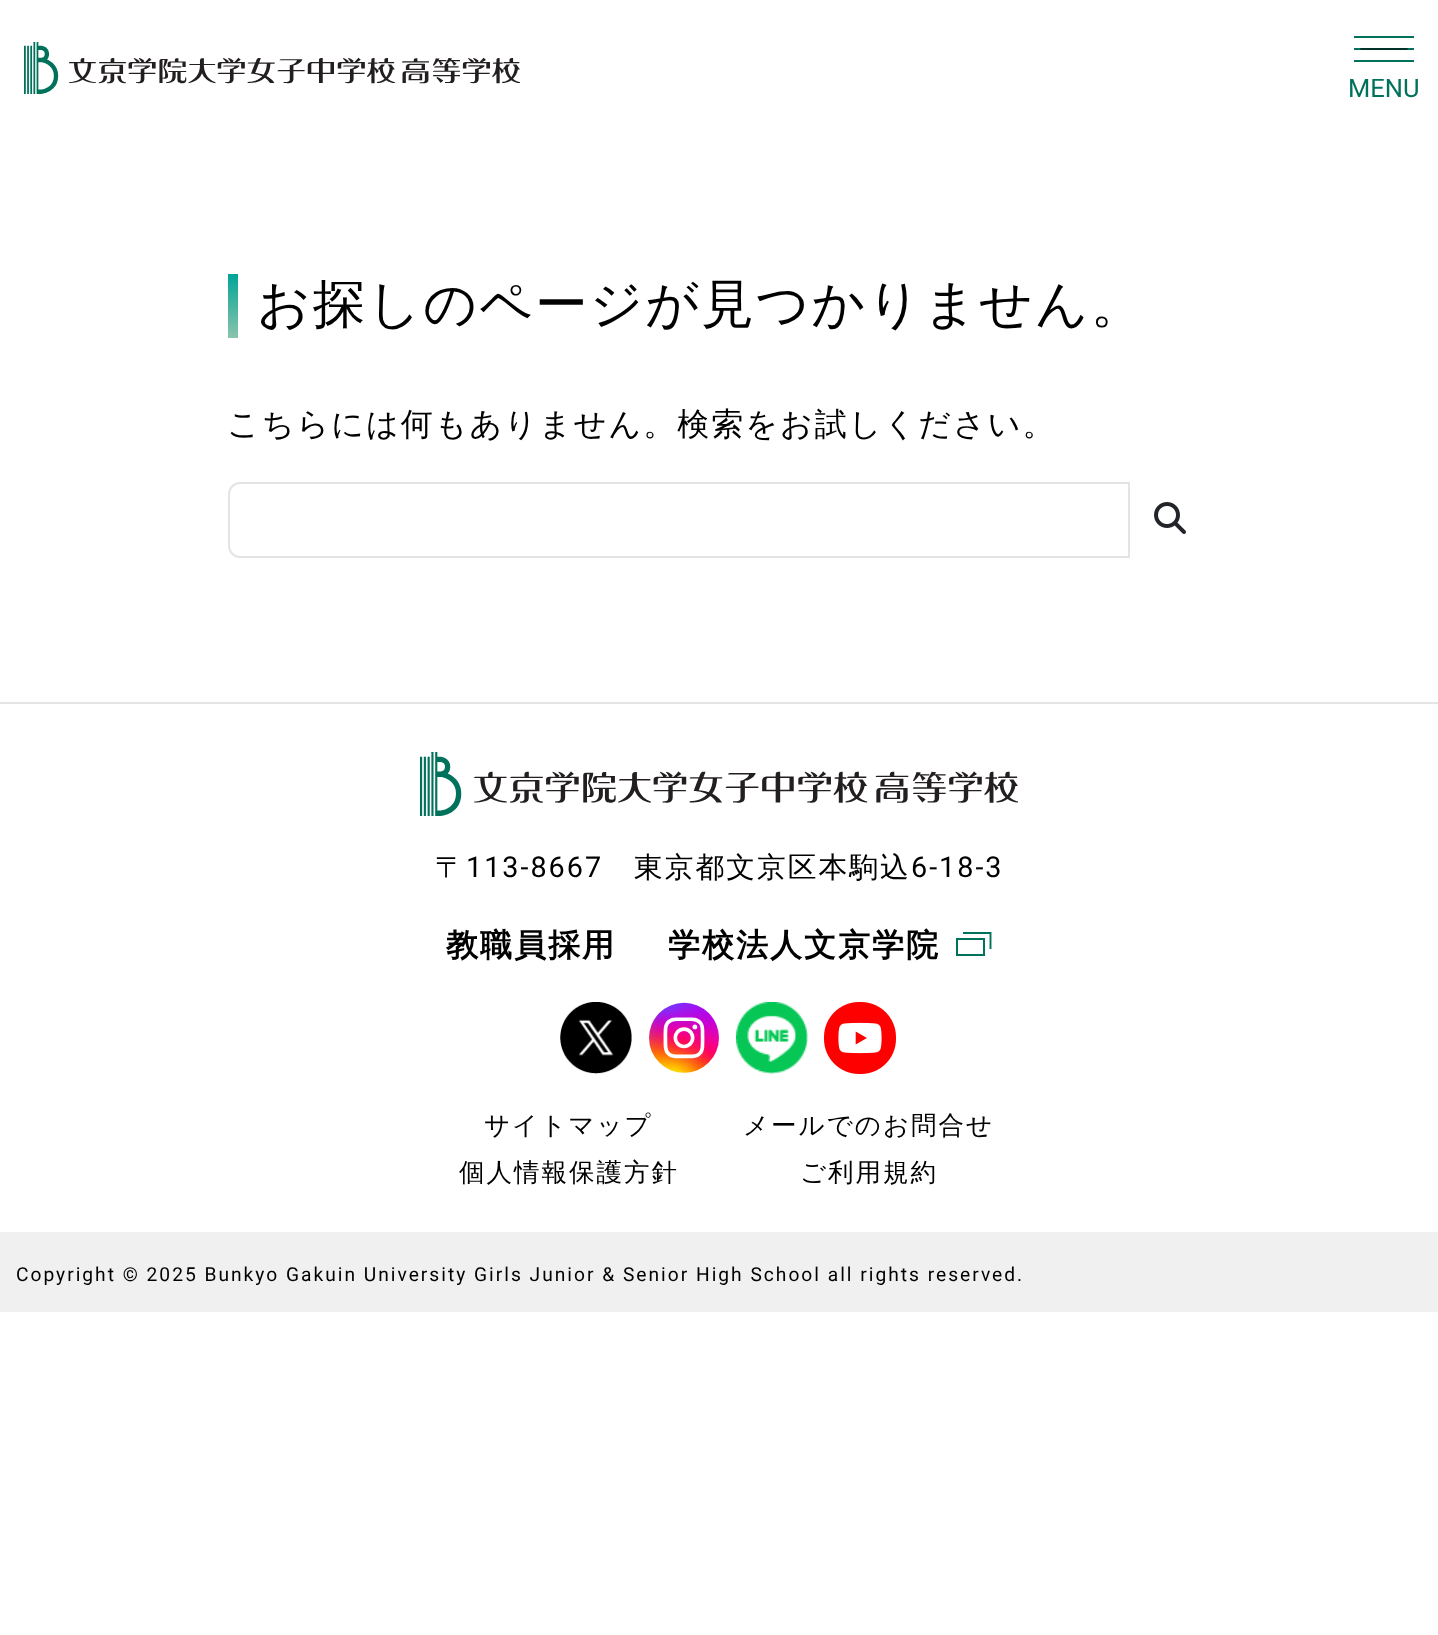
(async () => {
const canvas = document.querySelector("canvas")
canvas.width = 1438
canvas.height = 1635
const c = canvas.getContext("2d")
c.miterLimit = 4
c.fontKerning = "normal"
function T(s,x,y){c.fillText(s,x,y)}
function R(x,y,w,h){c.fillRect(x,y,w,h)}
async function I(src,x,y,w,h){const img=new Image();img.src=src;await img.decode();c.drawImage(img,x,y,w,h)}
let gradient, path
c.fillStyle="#fff"
R(0,0,1438,1635)
await I("1.png",24,42,496,52)
c.fillStyle="#00725b"
R(1354,48,60,2)
c.save()
c.beginPath()
c.rect(1354,48,60,2)
c.clip()
path = new Path2D("M1362 32h44m-44 16h44m-44 16h44")
c.strokeStyle="#003329"
c.lineWidth=4
c.lineCap="round"
c.stroke(path)
c.restore()
R(1354,36,60,2)
R(1354,60,60,2)
c.font="25.5px Roboto"
T("MENU",1348,97)
gradient = c.createLinearGradient(233,338,233,274)
gradient.addColorStop(0,"#8ac4ab")
gradient.addColorStop(1,"#01a498")
c.fillStyle = gradient
R(228,274,10,64)
c.letterSpacing="2px"
c.font="500 52.6px WenQuanYi Zen Hei"
c.fillStyle="#000"
T("お探しのページが見つかりません。",257,322)
c.font="500 32px WenQuanYi Zen Hei"
T("こちらには何もありません。検索をお試しください。",227,435)
c.beginPath()
c.roundRect(229,483,900,74,[11,0,0,11])
c.strokeStyle="#e4e4e4"
c.lineWidth=2
c.stroke()
await I("2.png",1154,502,32,32)
c.fillStyle="#e4e4e4"
R(0,702,1438,2)
await I("3.png",420,752,598,64)
c.font="500 28.75px WenQuanYi Zen Hei"
c.fillStyle="#000"
T("〒",435,877)
c.font="28.75px Roboto"
T("113-8667",466,877)
c.font="500 28.75px WenQuanYi Zen Hei"
T("東京都文京区本駒込",634,877)
c.font="28.75px Roboto"
T("6-18-3",911,877)
c.font="bold 32px WenQuanYi Zen Hei"
T("教職員採用",446,956)
T("学校法人文京学院",668,956)
c.strokeStyle="#00725b"
c.strokeRect(957,939,27,16)
path = new Path2D("M963 933h27.5v16")
c.lineWidth=1.9
c.stroke(path)
await I("4.png",560,1002,72,72)
await I("5.png",649,1002,70,71)
await I("6.png",736,1002,72,72)
await I("7.png",824,1002,72,72)
c.font="500 25.5px WenQuanYi Zen Hei"
T("サイトマップ",484,1134)
T("メールでのお問合せ",743,1134)
T("個人情報保護方針",459,1181)
T("ご利用規約",800,1181)
c.fillStyle="#f0f0f0"
R(0,1232,1438,80)
c.font="19.2px Roboto"
c.fillStyle="#000"
T("Copyright © 2025 Bunkyo Gakuin University Girls Junior & Senior High School all rights reserved.",16,1281)
})()
